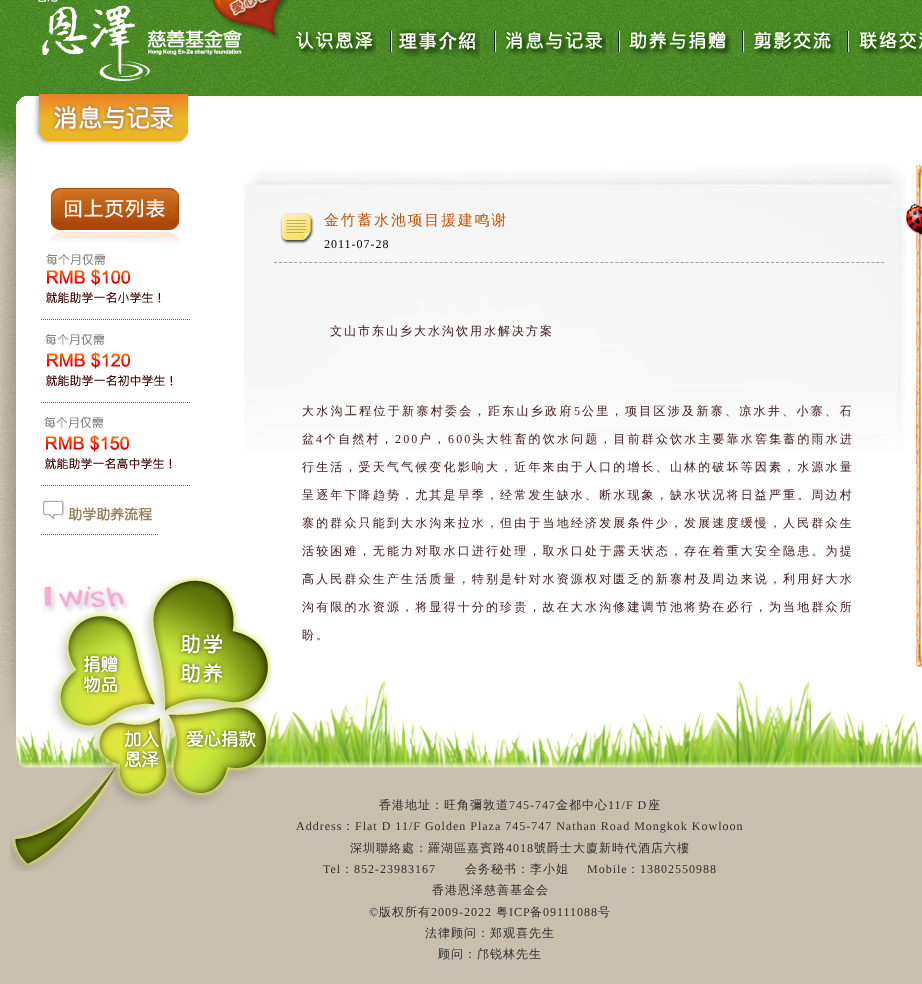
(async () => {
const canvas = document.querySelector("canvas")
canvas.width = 922
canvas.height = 984
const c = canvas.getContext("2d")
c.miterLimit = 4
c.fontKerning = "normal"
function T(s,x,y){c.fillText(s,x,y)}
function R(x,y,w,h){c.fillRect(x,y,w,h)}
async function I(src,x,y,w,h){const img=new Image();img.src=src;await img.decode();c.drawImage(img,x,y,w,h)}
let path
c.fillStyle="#c8bfae"
R(0,0,922,984)
await I("1.png",0,0,922,679)
await I("2.png",38,0,204,81)
await I("3.png",212,0,76,39)
await I("4.png",294,29,82,27)
await I("5.png",390,28,90,30)
await I("6.png",484,29,122,27)
await I("7.png",610,29,122,27)
await I("8.png",742,29,94,27)
await I("9.png",840,29,82,27)
await I("10.png",2,96,920,672)
await I("11.png",34,93,155,52)
await I("12.png",51,188,128,56)
await I("13.png",46,254,115,49)
path = new Path2D("M41 319.5h150")
c.strokeStyle="#666"
c.setLineDash([1,1])
c.stroke(path)
await I("14.png",45,334,128,52)
path = new Path2D("M41 402.5h150")
c.stroke(path)
await I("15.png",44,417,128,52)
path = new Path2D("M41 485.5h150")
c.stroke(path)
await I("16.png",43,500,109,21)
path = new Path2D("M41 534.5h117")
c.stroke(path)
await I("17.png",244,164,662,286)
await I("18.png",280,213,34,31)
path = new Path2D("M274 262.5h610")
c.strokeStyle="#a1a1a1"
c.setLineDash([3,2.02])
c.stroke(path)
c.letterSpacing="2px"
c.font="500 14.75px WenQuanYi Zen Hei"
c.fillStyle="#c05208"
T("金竹蓄水池项目援建鸣谢",324,225)
c.letterSpacing="1px"
c.font="12px Liberation Serif"
c.fillStyle="#000"
T("2011-07-28",324,248)
c.letterSpacing="2px"
c.font="500 12px WenQuanYi Zen Hei"
c.fillStyle="#3c1516"
T("文山市东山乡大水沟饮用水解决方案",330,335)
c.letterSpacing="2.3px"
T("大水沟工程位于新寨村委会，距东山乡政府",302,415)
c.font="12px Liberation Serif"
T("5",574,415)
c.font="500 12px WenQuanYi Zen Hei"
T("公里，项目区涉及新寨、凉水井、小寨、石",582,415)
c.letterSpacing="2.15px"
T("盆",302,443)
c.font="12px Liberation Serif"
T("4",316,443)
c.font="500 12px WenQuanYi Zen Hei"
T("个自然村，",324,443)
c.font="12px Liberation Serif"
T("200",395,443)
c.font="500 12px WenQuanYi Zen Hei"
T("户，",419,443)
c.font="12px Liberation Serif"
T("600",448,443)
c.font="500 12px WenQuanYi Zen Hei"
T("头大牲畜的饮水问题，目前群众饮水主要靠水窖集蓄的雨水进",472,443)
T("行生活，受天气气候变化影响大，近年来由于人口的增长、山林的破坏等因素，水源水量",302,471)
T("呈逐年下降趋势，尤其是旱季，经常发生缺水、断水现象，缺水状况将日益严重。周边村",302,499)
T("寨的群众只能到大水沟来拉水，但由于当地经济发展条件少，发展速度缓慢，人民群众生",302,527)
T("活较困难，无能力对取水口进行处理，取水口处于露天状态，存在着重大安全隐患。为提",302,555)
T("高人民群众生产生活质量，特别是针对水资源权对匮乏的新寨村及周边来说，利用好大水",302,583)
T("沟有限的水资源，将显得十分的珍贵，故在大水沟修建调节池将势在必行，为当地群众所",302,611)
c.letterSpacing="2px"
T("盼。",302,639)
await I("19.png",916,164,6,504)
await I("20.png",906,203,16,33)
await I("21.png",10,576,261,295)
await I("22.png",81,653,40,43)
await I("23.png",178,632,47,54)
await I("24.png",122,728,39,43)
await I("25.png",183,727,75,23)
c.letterSpacing="1px"
c.fillStyle="#303030"
T("香港地址：旺角彌敦道",379,809)
c.font="12px Liberation Serif"
T("745-747",509,809)
c.font="500 12px WenQuanYi Zen Hei"
T("金都中心",556,809)
c.font="12px Liberation Serif"
T("11/F D",608,809)
c.font="500 12px WenQuanYi Zen Hei"
T("座",648,809)
c.font="12px Liberation Serif"
T("Address",296,830)
c.font="500 12px WenQuanYi Zen Hei"
T("：",342,830)
c.font="12px Liberation Serif"
T("Flat D 11/F Golden Plaza 745-747 Nathan Road Mongkok Kowloon",355,830)
c.font="500 12px WenQuanYi Zen Hei"
T("深圳聯絡處：羅湖區嘉賓路",350,852)
c.font="12px Liberation Serif"
T("4018",506,852)
c.font="500 12px WenQuanYi Zen Hei"
T("號爵士大廈新時代酒店六樓",534,852)
c.font="12px Liberation Serif"
T("Tel",323,873)
c.font="500 12px WenQuanYi Zen Hei"
T("：",341,873)
c.font="12px Liberation Serif"
T("852-23983167",354,873)
c.font="500 12px WenQuanYi Zen Hei"
T("会务秘书：李小姐",465,873)
c.font="12px Liberation Serif"
T("Mobile",587,873)
c.font="500 12px WenQuanYi Zen Hei"
T("：",627,873)
c.font="12px Liberation Serif"
T("13802550988",640,873)
c.font="500 12px WenQuanYi Zen Hei"
T("香港恩泽慈善基金会",432,894)
c.font="12px Liberation Serif"
T("©",369,916)
c.font="500 12px WenQuanYi Zen Hei"
T("版权所有",379,916)
c.font="12px Liberation Serif"
T("2009-2022",431,916)
c.font="500 12px WenQuanYi Zen Hei"
T("粤",496,916)
c.font="12px Liberation Serif"
T("ICP",509,916)
c.font="500 12px WenQuanYi Zen Hei"
T("备",530,916)
c.font="12px Liberation Serif"
T("09111088",543,916)
c.font="500 12px WenQuanYi Zen Hei"
T("号",598,916)
T("法律顾问：郑观喜先生",425,937)
T("顾问：邝锐林先生",438,958)
})()
